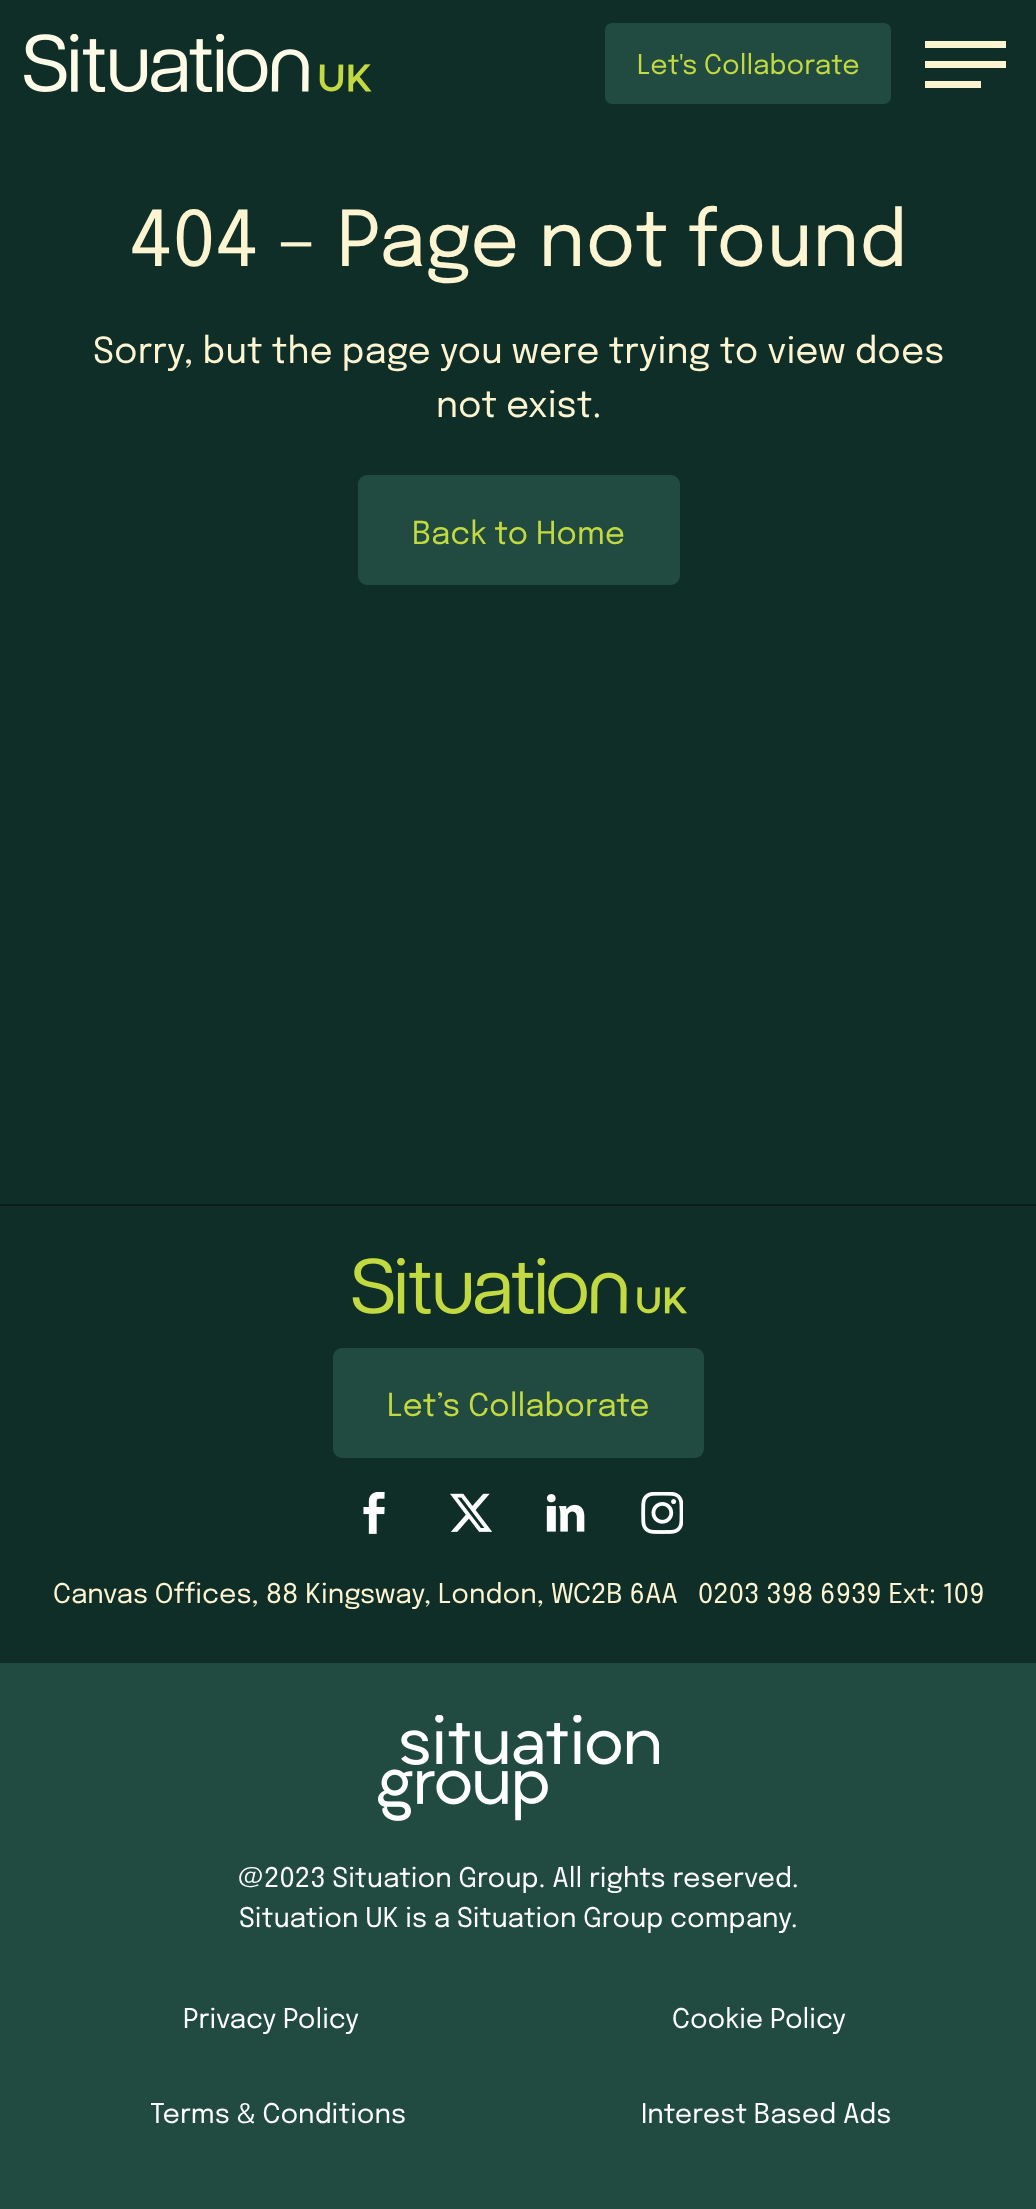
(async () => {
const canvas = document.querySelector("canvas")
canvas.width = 1036
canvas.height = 2209
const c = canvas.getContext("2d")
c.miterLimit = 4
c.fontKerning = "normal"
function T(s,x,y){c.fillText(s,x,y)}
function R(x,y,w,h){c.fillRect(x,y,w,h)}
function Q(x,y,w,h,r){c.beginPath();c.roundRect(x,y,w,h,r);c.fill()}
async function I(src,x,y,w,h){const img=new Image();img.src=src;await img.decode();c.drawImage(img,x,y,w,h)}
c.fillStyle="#0f2e27"
R(0,0,1036,2209)
await I("1.png",24,34,348,58)
c.fillStyle="#214a40"
Q(605,23,286,81,7)
c.font="27px Epilogue"
c.fillStyle="#c3d941"
T("Let's Collaborate",637,74)
c.fillStyle="#fdf4d2"
R(925,61,81,7)
R(925,41,81,7)
R(925,81,56,7)
c.font="76.5px Epilogue"
T("404 – Page not found",130,266)
c.font="36px Epilogue"
T("Sorry, but the page you were trying to view does",93,363)
T("not exist.",436,417)
c.fillStyle="#214a40"
Q(358,475,322,110,9)
c.font="31.5px Epilogue"
c.fillStyle="#c3d941"
T("Back to Home",412,544)
c.fillStyle="#091c17"
R(0,1204,1036,2)
await I("2.png",352,1258,335,56)
c.fillStyle="#214a40"
Q(333,1348,371,110,9)
c.fillStyle="#c3d941"
T("Let’s Collaborate",387,1416)
await I("3.png",363,1492,22,42)
await I("4.png",450,1493,42,39)
await I("5.png",546,1494,39,38)
await I("6.png",641,1492,42,42)
c.font="27px Epilogue"
c.fillStyle="#fdf4d2"
T("Canvas Offices, 88 Kingsway, London, WC2B 6AA",53,1603)
T("0203 398 6939 Ext: 109",698,1603)
c.fillStyle="#214a40"
R(0,1663,1036,546)
await I("7.png",378,1715,281,106)
c.fillStyle="#fff"
T("@2023 Situation Group. All rights reserved.",238,1887)
T("Situation UK is a Situation Group company.",239,1927)
T("Privacy Policy",183,2028)
T("Cookie Policy",672,2028)
T("Terms & Conditions",150,2123)
T("Interest Based Ads",641,2123)
})()
